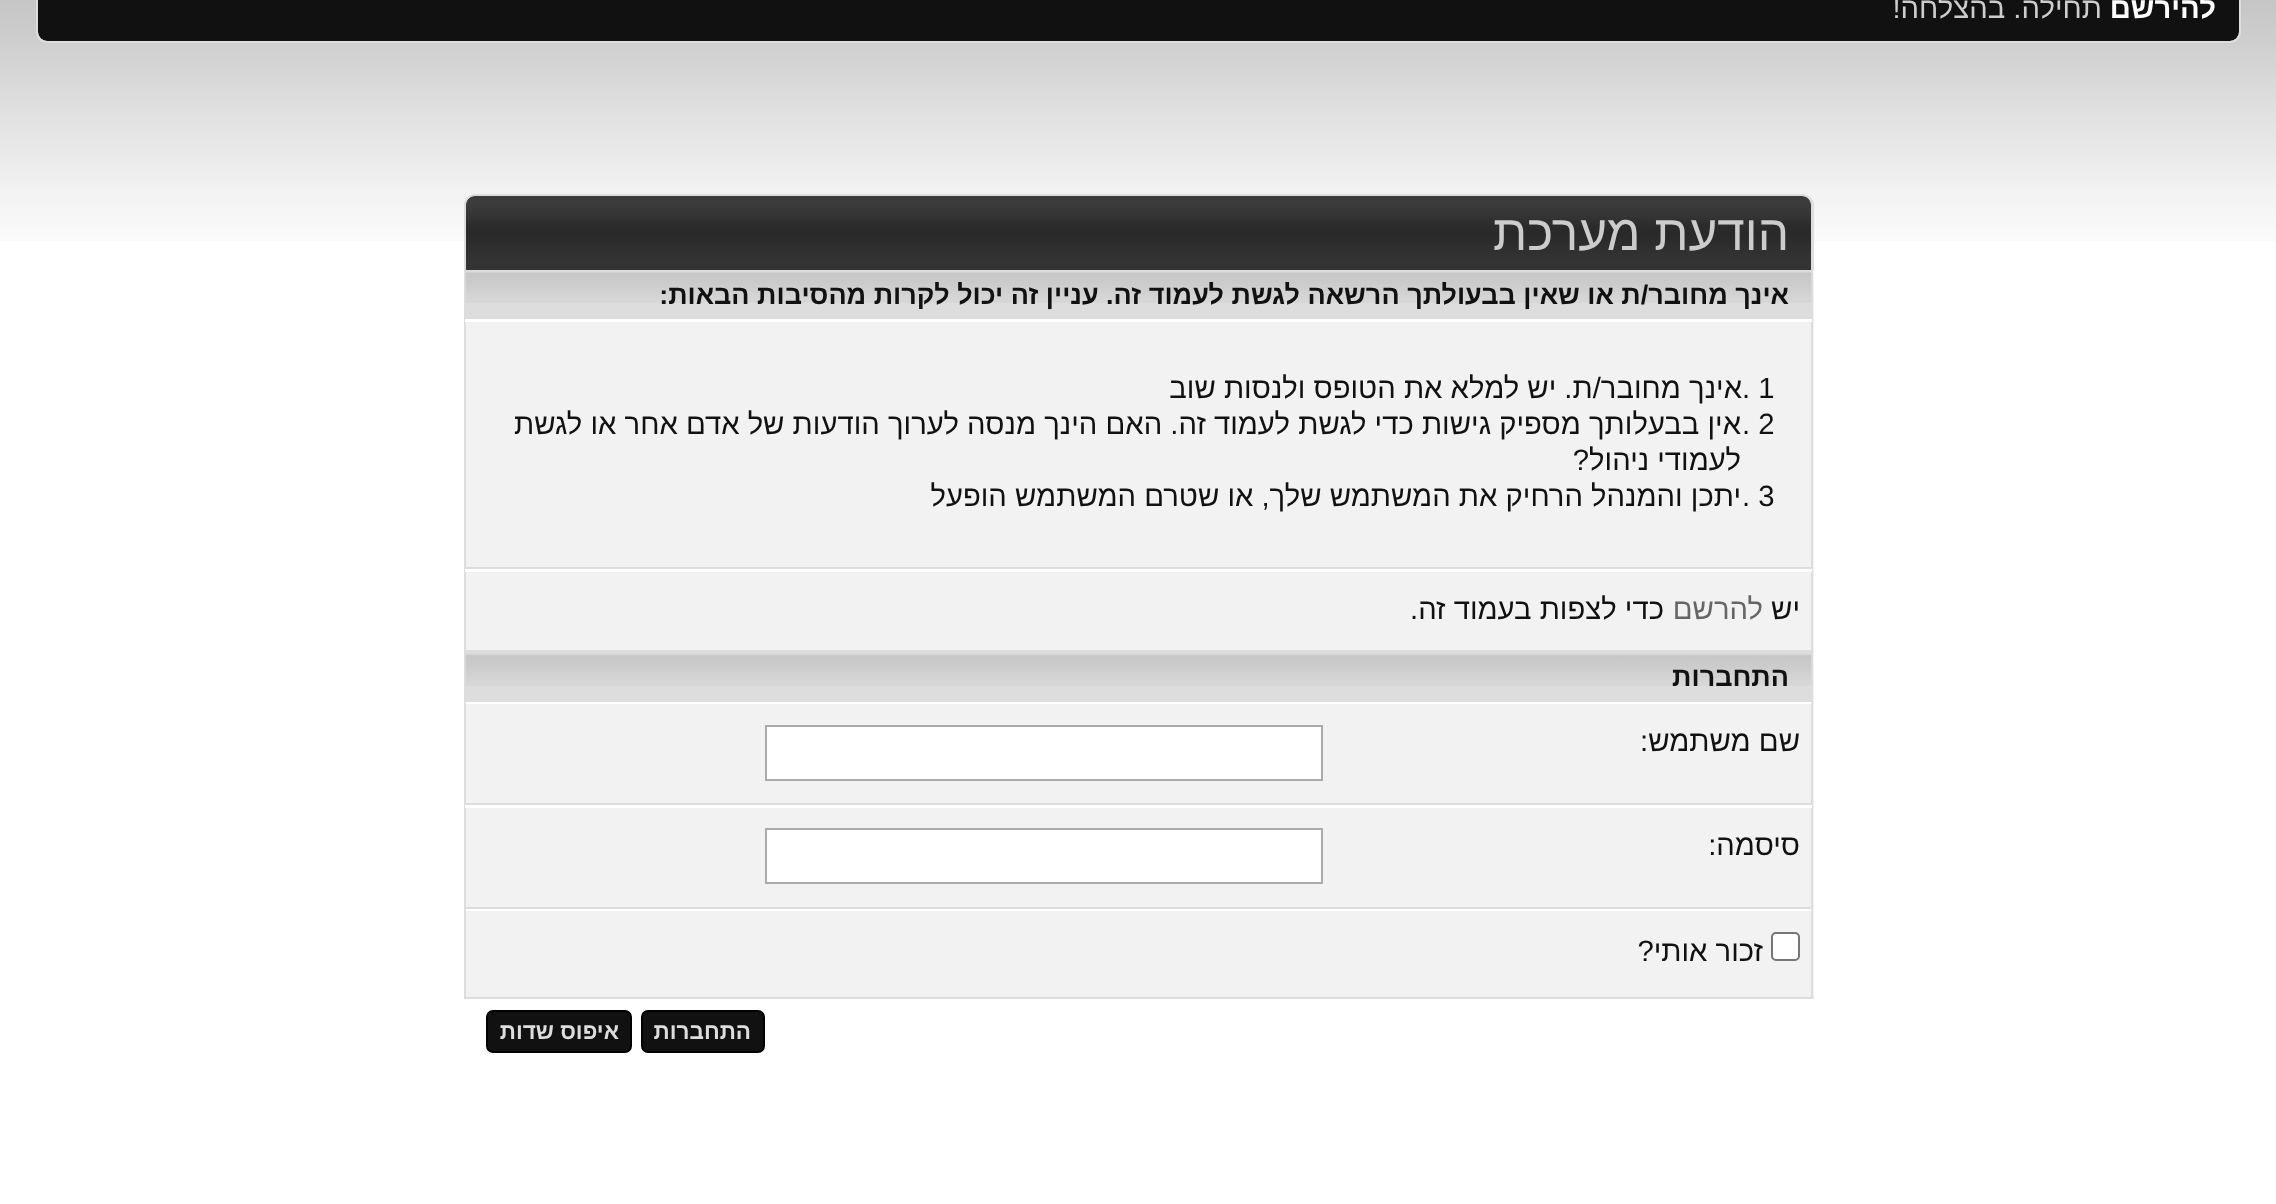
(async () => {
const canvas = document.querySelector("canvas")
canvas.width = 2276
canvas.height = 1204
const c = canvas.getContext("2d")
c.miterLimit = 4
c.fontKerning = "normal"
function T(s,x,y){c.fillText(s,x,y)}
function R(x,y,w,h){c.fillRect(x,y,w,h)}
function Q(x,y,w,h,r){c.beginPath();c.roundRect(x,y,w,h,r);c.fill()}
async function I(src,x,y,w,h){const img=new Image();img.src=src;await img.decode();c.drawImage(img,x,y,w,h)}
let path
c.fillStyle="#fff"
R(0,0,2276,1204)
await I("1.png",0,0,2276,241)
c.fillStyle="#111"
Q(38,-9,2201,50,9)
c.beginPath()
c.roundRect(37,-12,2203,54,10)
c.strokeStyle="#ddd"
c.lineWidth=2
c.stroke()
c.direction="rtl"
c.font="bold 29.25px Liberation Sans"
c.fillStyle="#fff"
T("להירשם",2216,18)
c.font="29.25px Liberation Sans"
c.fillStyle="#ccc"
T("תחילה. בהצלחה!",2102,18)
await I("2.png",466,196,1345,74)
c.fillStyle="#ddd"
path = new Path2D("M475 194h1327c6 0 12 5 12 11v65h-1350v-65c0-6 5-11 11-11zm0 2h1327c5 0 9 4 9 9v65h-1345v-65c0-5 4-9 9-9z")
c.fill(path,"evenodd")
c.font="49.5px Liberation Sans"
c.fillStyle="#ccc"
T("הודעת מערכת",1789,250)
c.fillStyle="#f2f2f2"
R(466,270,1348,727)
c.fillStyle="#ddd"
R(1811,270,2,729)
R(464,997,1350,2)
R(464,270,2,729)
R(466,270,1345,49)
await I("3.png",465,272,1347,31)
c.font="bold 27px Liberation Sans"
c.fillStyle="#111"
T("אינך מחובר/ת או שאין בבעולתך הרשאה לגשת לעמוד זה. עניין זה יכול לקרות מהסיבות הבאות:",1789,304)
c.fillStyle="#fff"
R(465,319,1347,3)
c.direction="ltr"
c.font="29.25px Liberation Sans"
c.fillStyle="#111"
T(". 1",1742,398)
c.direction="rtl"
T("אינך מחובר/ת. יש למלא את הטופס ולנסות שוב",1742,398)
c.direction="ltr"
T(". 2",1742,434)
c.direction="rtl"
T("אין בבעלותך מספיק גישות כדי לגשת לעמוד זה. האם הינך מנסה לערוך הודעות של אדם אחר או לגשת",1741,434)
T("לעמודי ניהול?",1741,470)
c.direction="ltr"
T(". 3",1742,506)
c.direction="rtl"
T("יתכן והמנהל הרחיק את המשתמש שלך, או שטרם המשתמש הופעל",1741,506)
c.fillStyle="#fff"
R(465,569,1347,3)
c.fillStyle="#ddd"
R(466,567,1345,2)
c.fillStyle="#111"
T("יש",1800,619)
c.fillStyle="#666"
T("להרשם",1763,619)
c.fillStyle="#111"
T("כדי לצפות בעמוד זה.",1664,619)
c.fillStyle="#ddd"
R(466,650,1345,52)
await I("4.png",465,654,1347,32)
c.font="bold 27px Liberation Sans"
c.fillStyle="#111"
T("התחברות",1789,686)
await I("5.png",465,702,1347,2)
c.font="29.25px Liberation Sans"
T("שם משתמש:",1800,751)
c.fillStyle="#fff"
c.beginPath()
c.rect(766,726,556,54)
c.fill()
c.strokeStyle="#aaa"
c.stroke()
R(465,805,1347,3)
c.fillStyle="#ddd"
R(466,803,1345,2)
c.fillStyle="#111"
T("סיסמה:",1800,855)
c.fillStyle="#fff"
c.beginPath()
c.rect(766,829,556,54)
c.fill()
c.stroke()
await I("5.png",465,909,1347,2)
c.fillStyle="#ddd"
R(466,907,1345,2)
c.fillStyle="#fff"
c.beginPath()
c.roundRect(1772,933,27,27,4)
c.fill()
c.strokeStyle="#767676"
c.stroke()
c.fillStyle="#111"
T("זכור אותי?",1763,961)
c.beginPath()
c.roundRect(642,1011,122,41,6)
c.fill()
c.strokeStyle="#000"
c.stroke()
c.font="bold 22.5px Liberation Sans"
c.fillStyle="#ddd"
T("התחברות",751,1039)
c.fillStyle="#111"
c.beginPath()
c.roundRect(487,1011,144,41,6)
c.fill()
c.stroke()
c.fillStyle="#ddd"
T("איפוס שדות",619,1039)
})()
